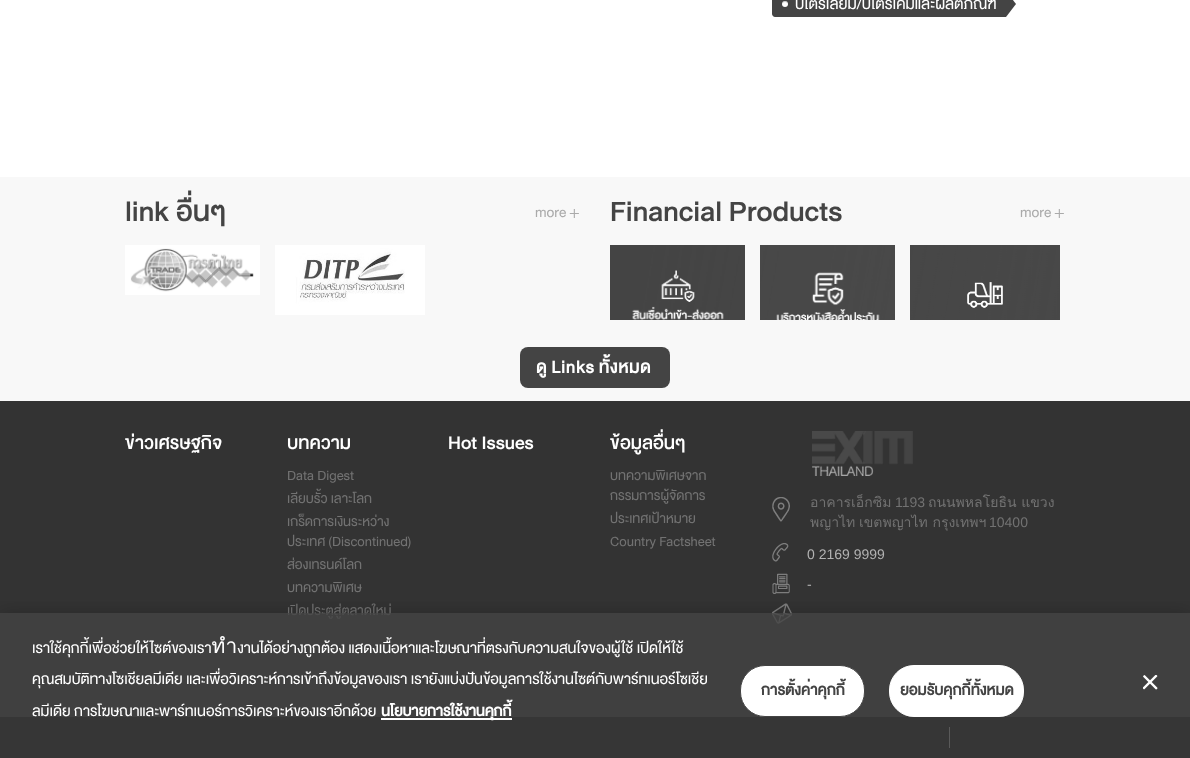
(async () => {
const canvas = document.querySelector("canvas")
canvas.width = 1190
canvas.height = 758
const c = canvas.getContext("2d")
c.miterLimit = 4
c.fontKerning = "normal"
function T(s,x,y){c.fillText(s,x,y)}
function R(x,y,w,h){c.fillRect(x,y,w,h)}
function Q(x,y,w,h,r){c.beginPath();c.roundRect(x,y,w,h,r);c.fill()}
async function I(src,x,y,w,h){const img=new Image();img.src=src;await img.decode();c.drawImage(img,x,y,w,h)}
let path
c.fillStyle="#fff"
R(0,0,1190,758)
c.fillStyle="#444"
path = new Path2D("M775-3h241v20h-241c-1.5 0-3-1.5-3-3v-14c0-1.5 1.5-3 3-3z")
c.fill(path)
c.fillStyle="#fff"
c.beginPath()
c.arc(785,4,3,0,7)
c.fill()
c.fillStyle="#00000040"
path = new Path2D("M785 2c2 0 3 1 3 2.5c.5-4.5-6.5-4.5-6 0c0-1.5 1-2.5 3-2.5z")
c.fill(path)
c.font="22px 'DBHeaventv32'"
c.fillStyle="#fff"
T("ปิโตรเลียม/ปิโตรเคมีและผลิตภัณฑ์",795,9)
R(1006,0,10,17)
c.fillStyle="#444"
path = new Path2D("M1006 17v-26l10 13z")
c.fill(path)
c.fillStyle="#f8f8f8"
R(0,177,1190,224)
c.font="500 40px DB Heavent"
c.fillStyle="#444"
T("link อื่นๆ",125,221)
c.font="20px 'DBHeaventv32'"
c.fillStyle="#aaa"
T("more",535,217)
c.font="300 26px DB Heavent"
T("+",569,218)
await I("1.png",125,245,135,50)
await I("2.png",275,245,150,70)
c.font="500 40px DB Heavent"
c.fillStyle="#444"
T("Financial Products",610,221)
c.font="20px 'DBHeaventv32'"
c.fillStyle="#aaa"
T("more",1020,217)
c.font="300 26px DB Heavent"
T("+",1054,218)
await I("3.png",610,245,135,75)
await I("4.png",760,245,135,75)
await I("5.png",910,245,150,75)
c.fillStyle="#444"
Q(520,347,150,41,8)
c.letterSpacing="1px"
c.wordSpacing="-1px"
c.font="bold 24px 'DBHeaventv32'"
c.fillStyle="#fff"
T("ดู Links ทั้งหมด",536,373)
c.fillStyle="#333"
R(0,401,1190,316)
c.letterSpacing="0px"
c.wordSpacing="0px"
c.font="500 26px DB Heavent"
c.fillStyle="#fff"
T("ข่าวเศรษฐกิจ",125,449)
T("บทความ",287,449)
c.font="19px 'DBHeaventv32'"
c.fillStyle="#727272"
T("Data Digest",287,480)
T("เลียบรั้ว เลาะโลก",287,503)
T("เกร็ดการเงินระหว่าง",287,526)
T("ประเทศ (Discontinued)",287,546)
T("ส่องเทรนด์โลก",287,569)
T("บทความพิเศษ",287,592)
T("เปิดประตูสู่ตลาดใหม่",287,615)
c.font="500 26px DB Heavent"
c.fillStyle="#fff"
T("Hot Issues",448,449)
T("ข้อมูลอื่นๆ",610,449)
c.font="19px 'DBHeaventv32'"
c.fillStyle="#727272"
T("บทความพิเศษจาก",610,480)
T("กรรมการผู้จัดการ",610,500)
T("ประเทศเป้าหมาย",610,523)
T("Country Factsheet",610,546)
await I("6.png",812,431,101,45)
await I("7.png",772,497,18,25)
c.font="14px Loma"
T("อาคารเอ็กซิม",810,507)
c.font="14px Liberation Sans"
T("1193",895,507)
c.font="14px Loma"
T("ถนนพหลโยธิน แขวง",928,507)
T("พญาไท",810,527)
T("เขตพญาไท กรุงเทพฯ",859,527)
c.font="14px Liberation Sans"
T("10400",989,527)
await I("8.png",772,543,17,19)
c.fillStyle="#b3b3b3"
T("0 2169 9999",807,559)
await I("9.png",772,573,18,21)
T("-",807,589)
await I("10.png",772,603,20,21)
c.fillStyle="#000"
R(0,717,1190,41)
c.fillStyle="#b3b3b3"
R(949,727,1,21)
c.save()
c.beginPath()
c.rect(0,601,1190,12)
c.clip()
c.fillStyle="#00000033"
c.filter="blur(9px)"
c.beginPath()
c.rect(0,613,1190,145)
c.fill()
c.filter="none"
c.restore()
c.fillStyle="#444444cc"
R(0,613,1190,145)
c.font="21px 'DBHeaventv32'"
c.fillStyle="#fff"
T("เราใช้คุกกี้เพื่อช่วยให้ไซต์ของเราทำงานได้อย่างถูกต้อง แสดงเนื้อหาและโฆษณาที่ตรงกับความสนใจของผู้ใช้ เปิดให้ใช้",32,653)
c.save()
c.beginPath()
c.rect(32,633,682,115)
c.clip()
T("คุณสมบัติทางโซเชียลมีเดีย และเพื่อวิเคราะห์การเข้าถึงข้อมูลของเรา เรายังแบ่งปันข้อมูลการใช้งานไซต์กับพาร์ทเนอร์โซเชีย",32,684)
c.restore()
T("ลมีเดีย การโฆษณาและพาร์ทเนอร์การวิเคราะห์ของเราอีกด้วย",32,716)
R(381,718,131,2)
c.font="bold 21px 'DBHeaventv32'"
T("นโยบายการใช้งานคุกกี้",381,716)
c.beginPath()
c.roundRect(740.5,665.5,124,51,24.5)
c.fill()
c.strokeStyle="#444"
c.stroke()
c.letterSpacing="0.25px"
c.fillStyle="#444"
T("การตั้งค่าคุกกี้",761,695)
c.fillStyle="#fff"
c.beginPath()
c.roundRect(889.5,665.5,134,51,24.5)
c.fill()
c.strokeStyle="#fff"
c.stroke()
c.fillStyle="#444"
T("ยอมรับคุกกี้ทั้งหมด",900,695)
await I("11.png",1143,675,15,15)
})()
